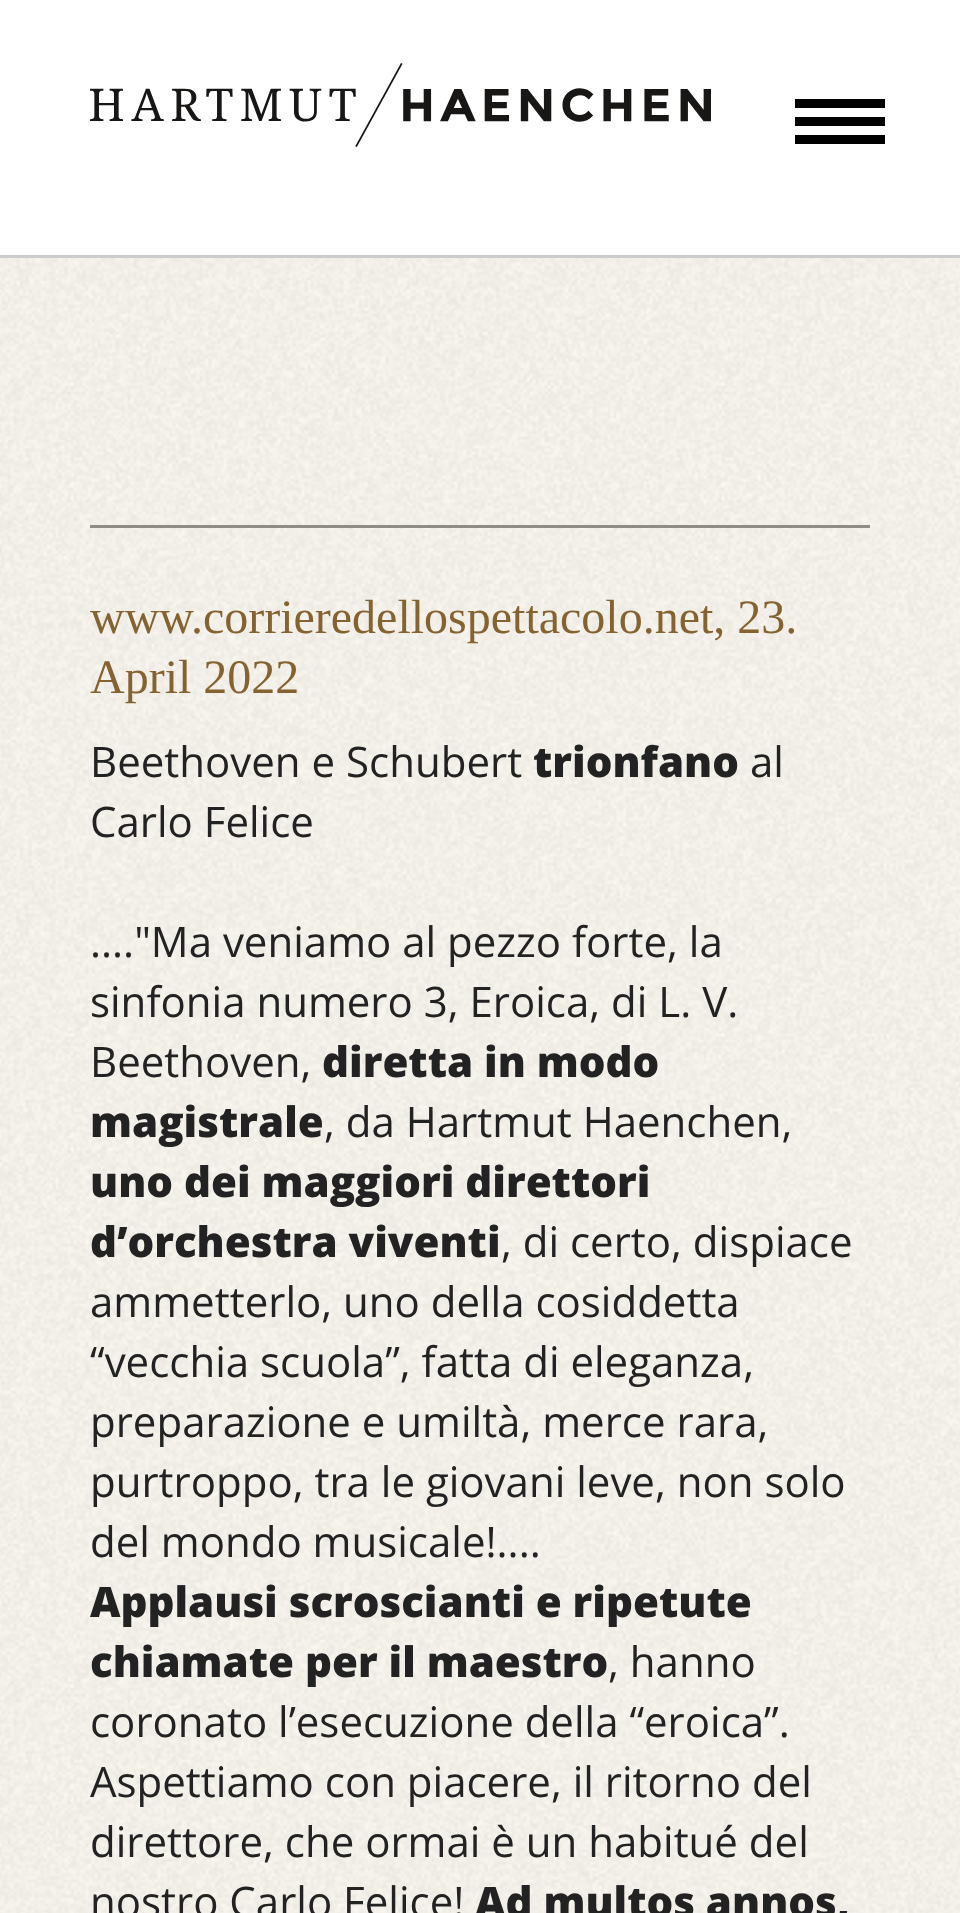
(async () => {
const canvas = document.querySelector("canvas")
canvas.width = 960
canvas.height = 1913
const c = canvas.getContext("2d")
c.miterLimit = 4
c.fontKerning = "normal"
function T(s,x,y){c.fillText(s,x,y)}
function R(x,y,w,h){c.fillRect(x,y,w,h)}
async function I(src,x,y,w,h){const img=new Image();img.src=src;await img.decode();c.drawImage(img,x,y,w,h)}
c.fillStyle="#fff"
R(0,0,960,1913)
await I("1.png",0,258,960,1655)
c.fillStyle="#ccc"
R(0,255,960,3)
await I("2.png",90,63,621,84)
c.fillStyle="#000"
R(795,99,90,9)
R(795,117,90,9)
R(795,135,90,9)
c.fillStyle="#8e8c87"
R(90,525,780,3)
c.font="48px Liberation Serif"
c.fillStyle="#846331"
T("www.corrieredellospettacolo.net, 23.",90,633)
T("April 2022",90,693)
c.font="42px Open Sans"
c.fillStyle="#222"
T("Beethoven e Schubert",90,777)
c.font="800 42px Open Sans"
T("trionfano",533,777)
c.font="42px Open Sans"
T("al",750,777)
T("Carlo Felice",90,837)
T("....\"Ma veniamo al pezzo forte, la",90,957)
T("sinfonia numero 3, Eroica, di L. V.",90,1017)
T("Beethoven,",90,1077)
c.font="800 42px Open Sans"
T("diretta in modo",322,1077)
T("magistrale",90,1137)
c.font="42px Open Sans"
T(", da Hartmut Haenchen,",324,1137)
c.font="800 42px Open Sans"
T("uno dei maggiori direttori",90,1197)
T("d’orchestra viventi",90,1257)
c.font="42px Open Sans"
T(", di certo, dispiace",501,1257)
T("ammetterlo, uno della cosiddetta",90,1317)
T("“vecchia scuola”, fatta di eleganza,",90,1377)
T("preparazione e umiltà, merce rara,",90,1437)
T("purtroppo, tra le giovani leve, non solo",90,1497)
T("del mondo musicale!....",90,1557)
c.font="800 42px Open Sans"
T("Applausi scroscianti e ripetute",90,1617)
T("chiamate per il maestro",90,1677)
c.font="42px Open Sans"
T(", hanno",608,1677)
T("coronato l’esecuzione della “eroica”.",90,1737)
T("Aspettiamo con piacere, il ritorno del",90,1797)
T("direttore, che ormai è un habitué del",90,1857)
T("nostro Carlo Felice!",90,1917)
c.font="800 42px Open Sans"
T("Ad multos annos,",475,1917)
})()
